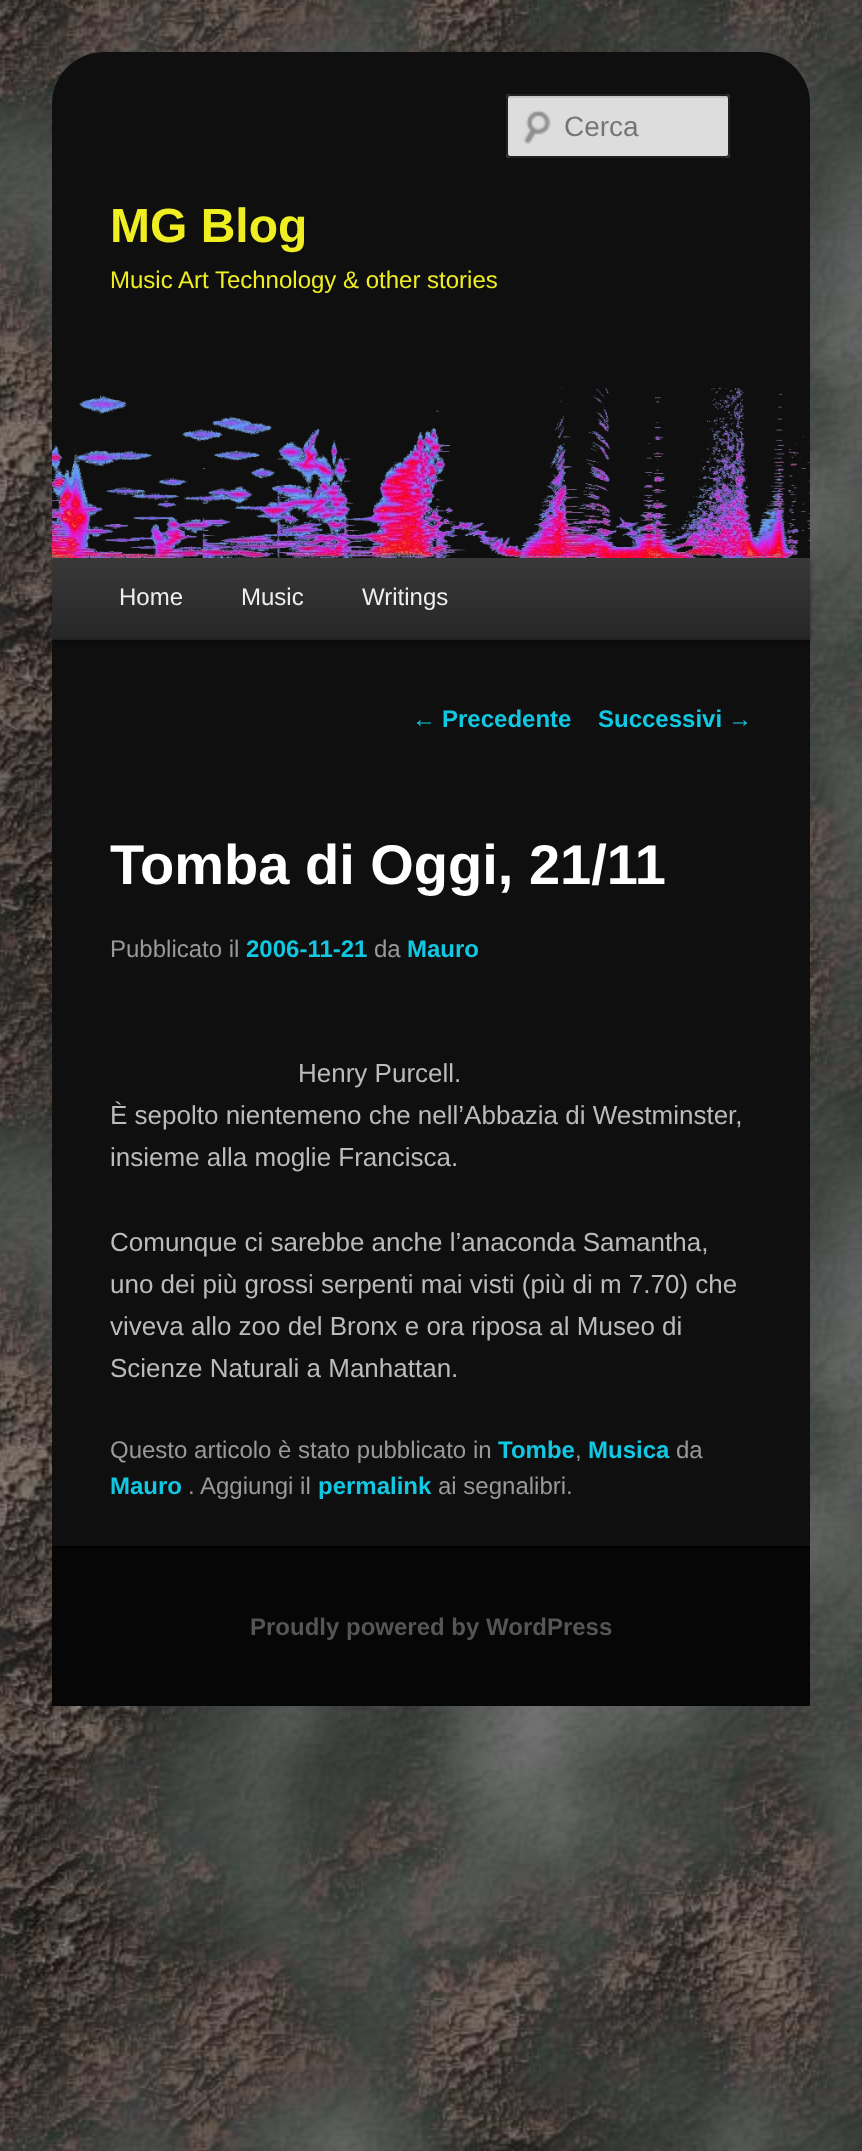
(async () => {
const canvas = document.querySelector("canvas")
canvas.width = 862
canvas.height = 2151
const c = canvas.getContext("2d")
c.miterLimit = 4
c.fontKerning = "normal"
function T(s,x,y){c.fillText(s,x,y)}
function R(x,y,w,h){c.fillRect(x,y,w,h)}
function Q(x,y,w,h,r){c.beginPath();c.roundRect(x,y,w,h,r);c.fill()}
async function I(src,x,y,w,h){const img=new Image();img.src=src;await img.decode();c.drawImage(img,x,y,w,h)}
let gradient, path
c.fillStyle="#fff"
R(0,0,862,2151)
await I("1.png",0,0,862,2151)
c.fillStyle="#0f0f0f"
Q(52,52,758,1654,52)
c.fillStyle="#ddd"
Q(506,94,224,64,4)
await I("2.png",523,110,28,35)
c.fillStyle="#c7c7c7"
path = new Path2D("M510 98h216c1 0 2 1 2 2v-2c0-1-1-2-2-2h-216c-1 0-2 1-2 2v2c0-1 1-2 2-2z")
c.fill(path)
c.beginPath()
c.roundRect(507,95,222,62,3)
c.strokeStyle="#222"
c.lineWidth=2
c.stroke()
c.font="28px Liberation Sans"
c.fillStyle="#757575"
T("Cerca",564,136)
c.font="bold 48px Liberation Sans"
c.fillStyle="#ee2"
T("MG Blog",110,242)
c.font="24px Liberation Sans"
T("Music Art Technology & other stories",110,288)
c.fillStyle="#00000066"
c.filter="blur(2px)"
c.beginPath()
c.rect(52,560,758,82)
c.fill()
c.filter="none"
await I("3.png",52,388,758,170)
gradient = c.createLinearGradient(431,558,431,638)
gradient.addColorStop(0,"#383838")
gradient.addColorStop(1,"#272727")
c.fillStyle = gradient
R(52,558,758,80)
c.fillStyle="#222"
R(52,638,758,2)
c.fillStyle="#eee"
T("Home",119,605)
T("Music",241,605)
T("Writings",362,605)
c.fillStyle="#12c7e2"
T("←",412,727)
c.font="bold 24px Liberation Sans"
T("Precedente",442,727)
T("Successivi",598,727)
c.font="24px Liberation Sans"
T("→",728,727)
c.font="bold 56px Liberation Sans"
c.fillStyle="#fff"
T("Tomba di Oggi, 21/11",110,884)
c.font="24px Liberation Sans"
c.fillStyle="#999"
T("Pubblicato il",110,957)
c.font="bold 24px Liberation Sans"
c.fillStyle="#12c7e2"
T("2006-11-21",246,957)
c.font="24px Liberation Sans"
c.fillStyle="#999"
T("da",374,957)
c.font="bold 24px Liberation Sans"
c.fillStyle="#12c7e2"
T("Mauro",407,957)
c.font="26px Liberation Sans"
c.fillStyle="#bbb"
T("Henry Purcell.",298,1082)
T("È sepolto nientemeno che nell’Abbazia di Westminster,",110,1124)
T("insieme alla moglie Francisca.",110,1166)
T("Comunque ci sarebbe anche l’anaconda Samantha,",110,1251)
T("uno dei più grossi serpenti mai visti (più di m 7.70) che",110,1293)
T("viveva allo zoo del Bronx e ora riposa al Museo di",110,1335)
T("Scienze Naturali a Manhattan.",110,1377)
c.font="24px Liberation Sans"
c.fillStyle="#999"
T("Questo articolo è stato pubblicato in",110,1458)
c.font="bold 24px Liberation Sans"
c.fillStyle="#12c7e2"
T("Tombe",498,1458)
c.font="24px Liberation Sans"
c.fillStyle="#999"
T(",",575,1458)
c.font="bold 24px Liberation Sans"
c.fillStyle="#12c7e2"
T("Musica",588,1458)
c.font="24px Liberation Sans"
c.fillStyle="#999"
T("da",676,1458)
c.font="bold 24px Liberation Sans"
c.fillStyle="#12c7e2"
T("Mauro",110,1494)
c.font="24px Liberation Sans"
c.fillStyle="#999"
T(". Aggiungi il",188,1494)
c.font="bold 24px Liberation Sans"
c.fillStyle="#12c7e2"
T("permalink",318,1494)
c.font="24px Liberation Sans"
c.fillStyle="#999"
T("ai segnalibri.",438,1494)
c.fillStyle="#060606"
R(52,1548,758,158)
c.fillStyle="#000"
R(52,1546,758,2)
c.font="bold 24px Liberation Sans"
c.fillStyle="#555"
T("Proudly powered by WordPress",250,1635)
})()
